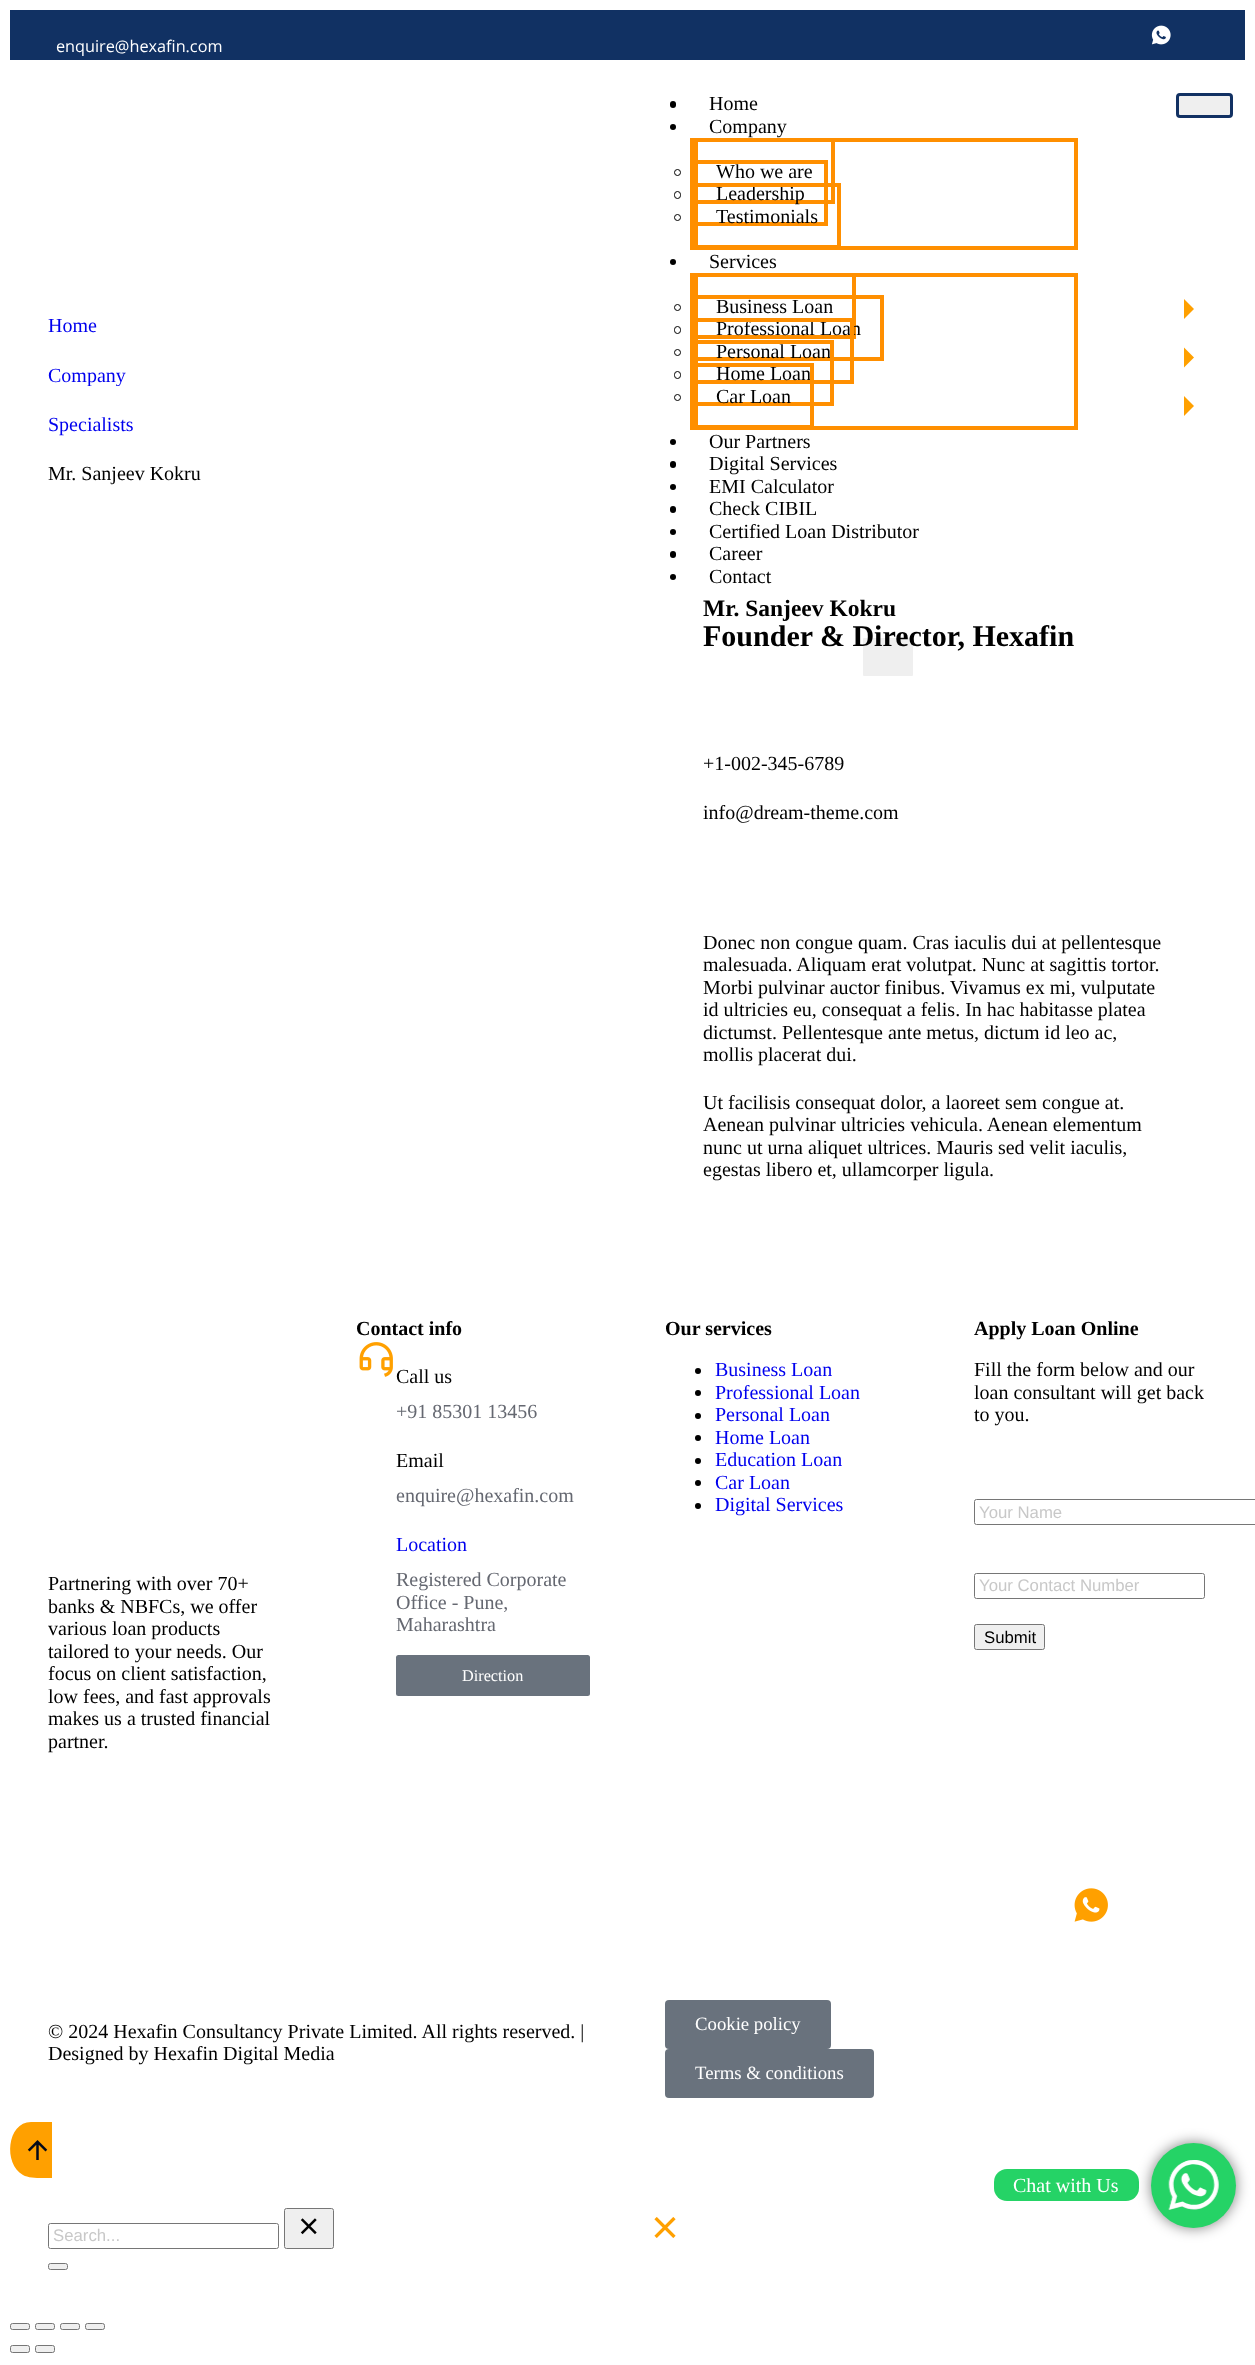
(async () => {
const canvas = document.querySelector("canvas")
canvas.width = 1255
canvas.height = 2365
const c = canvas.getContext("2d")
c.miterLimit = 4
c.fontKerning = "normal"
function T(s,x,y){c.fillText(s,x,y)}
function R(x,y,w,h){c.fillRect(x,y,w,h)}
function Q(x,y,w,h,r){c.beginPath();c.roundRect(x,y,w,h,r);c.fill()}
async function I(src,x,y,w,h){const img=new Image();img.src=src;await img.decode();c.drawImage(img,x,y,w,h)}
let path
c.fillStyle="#fff"
R(0,0,1255,2365)
c.fillStyle="#113163"
R(10,10,1235,50)
await I("1.png",1151,25,20,20)
c.font="16.25px Open Sans"
c.fillStyle="#fff"
T("enquire@hexafin.com",56,52)
c.fillStyle="#000"
Q(670,101,6,7,3)
c.font="20px Liberation Serif"
T("Home",709,110)
c.beginPath()
c.arc(673,127,3,0,7)
c.fill()
T("Company",709,133)
c.strokeStyle="#ff8f00"
c.lineWidth=4
c.strokeRect(692,140,384,108)
c.beginPath()
c.arc(677.5,172.5,3,0,7)
c.strokeStyle="#000"
c.lineWidth=1
c.stroke()
c.strokeStyle="#ff8f00"
c.lineWidth=4
c.strokeRect(696,140,137,62)
T("Who we are",716,178)
c.beginPath()
c.roundRect(674.5,191.5,6,7,3)
c.strokeStyle="#000"
c.lineWidth=1
c.stroke()
c.strokeStyle="#ff8f00"
c.lineWidth=4
c.strokeRect(696,162,130,62)
T("Leadership",716,200)
c.beginPath()
c.arc(677.5,217.5,3,0,7)
c.strokeStyle="#000"
c.lineWidth=1
c.stroke()
c.strokeStyle="#ff8f00"
c.lineWidth=4
c.strokeRect(696,185,143,62)
T("Testimonials",716,223)
c.beginPath()
c.arc(673,262,3,0,7)
c.fill()
T("Services",709,268)
c.strokeRect(692,275,384,153)
c.beginPath()
c.arc(677.5,307.5,3,0,7)
c.strokeStyle="#000"
c.lineWidth=1
c.stroke()
c.strokeStyle="#ff8f00"
c.lineWidth=4
c.strokeRect(696,275,158,62)
T("Business Loan",716,313)
c.beginPath()
c.roundRect(674.5,326.5,6,7,3)
c.strokeStyle="#000"
c.lineWidth=1
c.stroke()
c.strokeStyle="#ff8f00"
c.lineWidth=4
c.strokeRect(696,297,186,62)
T("Professional Loan",716,335)
c.beginPath()
c.arc(677.5,352.5,3,0,7)
c.strokeStyle="#000"
c.lineWidth=1
c.stroke()
c.strokeStyle="#ff8f00"
c.lineWidth=4
c.strokeRect(696,320,156,62)
T("Personal Loan",716,358)
c.beginPath()
c.roundRect(674.5,371.5,6,7,3)
c.strokeStyle="#000"
c.lineWidth=1
c.stroke()
c.strokeStyle="#ff8f00"
c.lineWidth=4
c.strokeRect(696,342,136,62)
T("Home Loan",716,380)
c.beginPath()
c.arc(677.5,397.5,3,0,7)
c.strokeStyle="#000"
c.lineWidth=1
c.stroke()
c.strokeStyle="#ff8f00"
c.lineWidth=4
c.strokeRect(696,365,116,62)
T("Car Loan",716,403)
c.beginPath()
c.arc(673,442,3,0,7)
c.fill()
T("Our Partners",709,448)
Q(670,461,6,7,3)
T("Digital Services",709,470)
c.beginPath()
c.arc(673,487,3,0,7)
c.fill()
T("EMI Calculator",709,493)
Q(670,506,6,7,3)
T("Check CIBIL",709,515)
c.beginPath()
c.arc(673,532,3,0,7)
c.fill()
T("Certified Loan Distributor",709,538)
Q(670,551,6,7,3)
T("Career",709,560)
c.beginPath()
c.arc(673,577,3,0,7)
c.fill()
T("Contact",709,583)
c.fillStyle="#efefef"
c.beginPath()
c.roundRect(861.5,636.5,53,41,2.5)
c.fill()
c.strokeStyle="#fff"
c.lineWidth=3
c.stroke()
c.beginPath()
c.roundRect(1177.5,94.5,54,22,2.5)
c.fill()
c.strokeStyle="#123163"
c.stroke()
c.fillStyle="#ffa000"
path = new Path2D("M1194 309l-10 10v-20z")
c.fill(path)
c.fillStyle="#00e"
T("Home",48,332)
c.fillStyle="#ffa000"
path = new Path2D("M1194 357.5l-10 10v-20z")
c.fill(path)
c.save()
c.beginPath()
c.rect(48,338,1160,48)
c.clip()
c.fillStyle="#00e"
T("Company",48,382)
c.restore()
path = new Path2D("M1194 406l-10 10v-20z")
c.fill(path)
c.fillStyle="#00e"
T("Specialists",48,431)
c.fillStyle="#000"
T("Mr. Sanjeev Kokru",48,480)
c.font="bold 23.5px Liberation Serif"
T("Mr. Sanjeev Kokru",703,616)
c.font="bold 30px Liberation Serif"
T("Founder & Director, Hexafin",703,646)
c.font="20px Liberation Serif"
T("+1-002-345-6789",703,770)
T("info@dream-theme.com",703,819)
T("Donec non congue quam. Cras iaculis dui at pellentesque",703,949)
T("malesuada. Aliquam erat volutpat. Nunc at sagittis tortor.",703,971)
T("Morbi pulvinar auctor finibus. Vivamus ex mi, vulputate",703,994)
T("id ultricies eu, consequat a felis. In hac habitasse platea",703,1016)
T("dictumst. Pellentesque ante metus, dictum id leo ac,",703,1039)
T("mollis placerat dui.",703,1061)
T("Ut facilisis consequat dolor, a laoreet sem congue at.",703,1109)
T("Aenean pulvinar ultricies vehicula. Aenean elementum",703,1131)
T("nunc ut urna aliquet ultrices. Mauris sed velit iaculis,",703,1154)
T("egestas libero et, ullamcorper ligula.",703,1176)
c.font="bold 20px Liberation Serif"
T("Contact info",356,1335)
await I("2.png",359,1342,34,35)
c.font="20px Liberation Serif"
T("Call us",396,1383)
c.fillStyle="#656871"
T("+91 85301 13456",396,1418)
c.fillStyle="#000"
T("Email",396,1467)
c.fillStyle="#656871"
T("enquire@hexafin.com",396,1502)
c.fillStyle="#00e"
T("Location",396,1551)
c.fillStyle="#656871"
T("Registered Corporate",396,1586)
T("Office - Pune,",396,1609)
T("Maharashtra",396,1631)
c.fillStyle="#69727d"
Q(396,1655,194,41,2.5)
c.font="16.25px Liberation Serif"
c.fillStyle="#fff"
T("Direction",462,1681)
c.font="bold 20px Liberation Serif"
c.fillStyle="#000"
T("Our services",665,1335)
c.beginPath()
c.arc(698,1371,3,0,7)
c.fill()
c.font="20px Liberation Serif"
c.fillStyle="#00e"
T("Business Loan",715,1376)
c.fillStyle="#000"
c.beginPath()
c.arc(698,1393,3,0,7)
c.fill()
c.fillStyle="#00e"
T("Professional Loan",715,1399)
c.fillStyle="#000"
c.beginPath()
c.arc(698,1416,3,0,7)
c.fill()
c.fillStyle="#00e"
T("Personal Loan",715,1421)
c.fillStyle="#000"
c.beginPath()
c.arc(698,1438,3,0,7)
c.fill()
c.fillStyle="#00e"
T("Home Loan",715,1444)
c.fillStyle="#000"
c.beginPath()
c.arc(698,1461,3,0,7)
c.fill()
c.fillStyle="#00e"
T("Education Loan",715,1466)
c.fillStyle="#000"
c.beginPath()
c.arc(698,1483,3,0,7)
c.fill()
c.fillStyle="#00e"
T("Car Loan",715,1489)
c.fillStyle="#000"
c.beginPath()
c.arc(698,1506,3,0,7)
c.fill()
c.fillStyle="#00e"
T("Digital Services",715,1511)
c.font="bold 20px Liberation Serif"
c.fillStyle="#000"
T("Apply Loan Online",974,1335)
c.font="20px Liberation Serif"
T("Fill the form below and our",974,1376)
T("loan consultant will get back",974,1399)
T("to you.",974,1421)
c.beginPath()
c.roundRect(974.5,1499.5,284,25,2)
c.strokeStyle="#767676"
c.lineWidth=1
c.stroke()
c.font="16.75px Liberation Sans"
c.fillStyle="#c8c8c8"
T("Your Name",979,1518)
c.beginPath()
c.roundRect(974.5,1573.5,230,25,2)
c.stroke()
T("Your Contact Number",979,1591)
c.fillStyle="#efefef"
c.beginPath()
c.roundRect(974.5,1624.5,70,25,2)
c.fill()
c.stroke()
c.fillStyle="#000"
T("Submit",984,1643)
await I("3.png",1074,1888,34,34)
c.font="20px Liberation Serif"
T("Partnering with over 70+",48,1590)
T("banks & NBFCs, we offer",48,1613)
T("various loan products",48,1635)
T("tailored to your needs. Our",48,1658)
T("focus on client satisfaction,",48,1680)
T("low fees, and fast approvals",48,1703)
T("makes us a trusted financial",48,1725)
T("partner.",48,1748)
T("© 2024 Hexafin Consultancy Private Limited. All rights reserved. |",48,2038)
T("Designed by Hexafin Digital Media",48,2060)
c.fillStyle="#69727d"
Q(665,2000,166,49,4)
c.font="18.75px Liberation Serif"
c.fillStyle="#fff"
T("Cookie policy",695,2030)
c.fillStyle="#69727d"
Q(665,2049,209,49,4)
c.fillStyle="#fff"
T("Terms & conditions",695,2079)
c.fillStyle="#ffa000"
path = new Path2D("M31 2122h21v56c-8 0-22 1-29-3c-20-11-16-53 8-53z")
c.fill(path)
await I("4.png",27,2140,21,20)
c.fillStyle="#25d366"
Q(994,2169,145,32,13)
c.font="20px Liberation Serif"
c.fillStyle="#fff"
T("Chat with Us",1013,2192)
c.fillStyle="#00000080"
c.filter="blur(7px)"
c.beginPath()
c.roundRect(1151,2143,85,85,42.5)
c.fill()
c.filter="none"
c.fillStyle="#25d366"
c.beginPath()
c.arc(1193.5,2185.5,42.5,0,7)
c.fill()
await I("5.png",1168,2160,51,50)
c.beginPath()
c.roundRect(48.5,2223.5,230,25,2)
c.stroke()
c.font="16.75px Liberation Sans"
c.fillStyle="#c8c8c8"
T("Search...",53,2241)
c.fillStyle="#efefef"
c.beginPath()
c.roundRect(284.5,2208.5,49,40,2)
c.fill()
c.stroke()
await I("6.png",300,2218,17,17)
c.beginPath()
c.roundRect(48.5,2263.5,19,6,2)
c.fill()
c.stroke()
await I("7.png",654,2217,22,21)
c.beginPath()
c.roundRect(10.5,2323.5,19,6,2)
c.fill()
c.stroke()
c.beginPath()
c.roundRect(35.5,2323.5,19,6,2)
c.fill()
c.stroke()
c.beginPath()
c.roundRect(60.5,2323.5,19,6,2)
c.fill()
c.stroke()
c.beginPath()
c.roundRect(85.5,2323.5,19,6,2)
c.fill()
c.stroke()
c.beginPath()
c.roundRect(10.5,2345.5,19,7,2)
c.fill()
c.stroke()
c.beginPath()
c.roundRect(35.5,2345.5,19,7,2)
c.fill()
c.stroke()
})()
